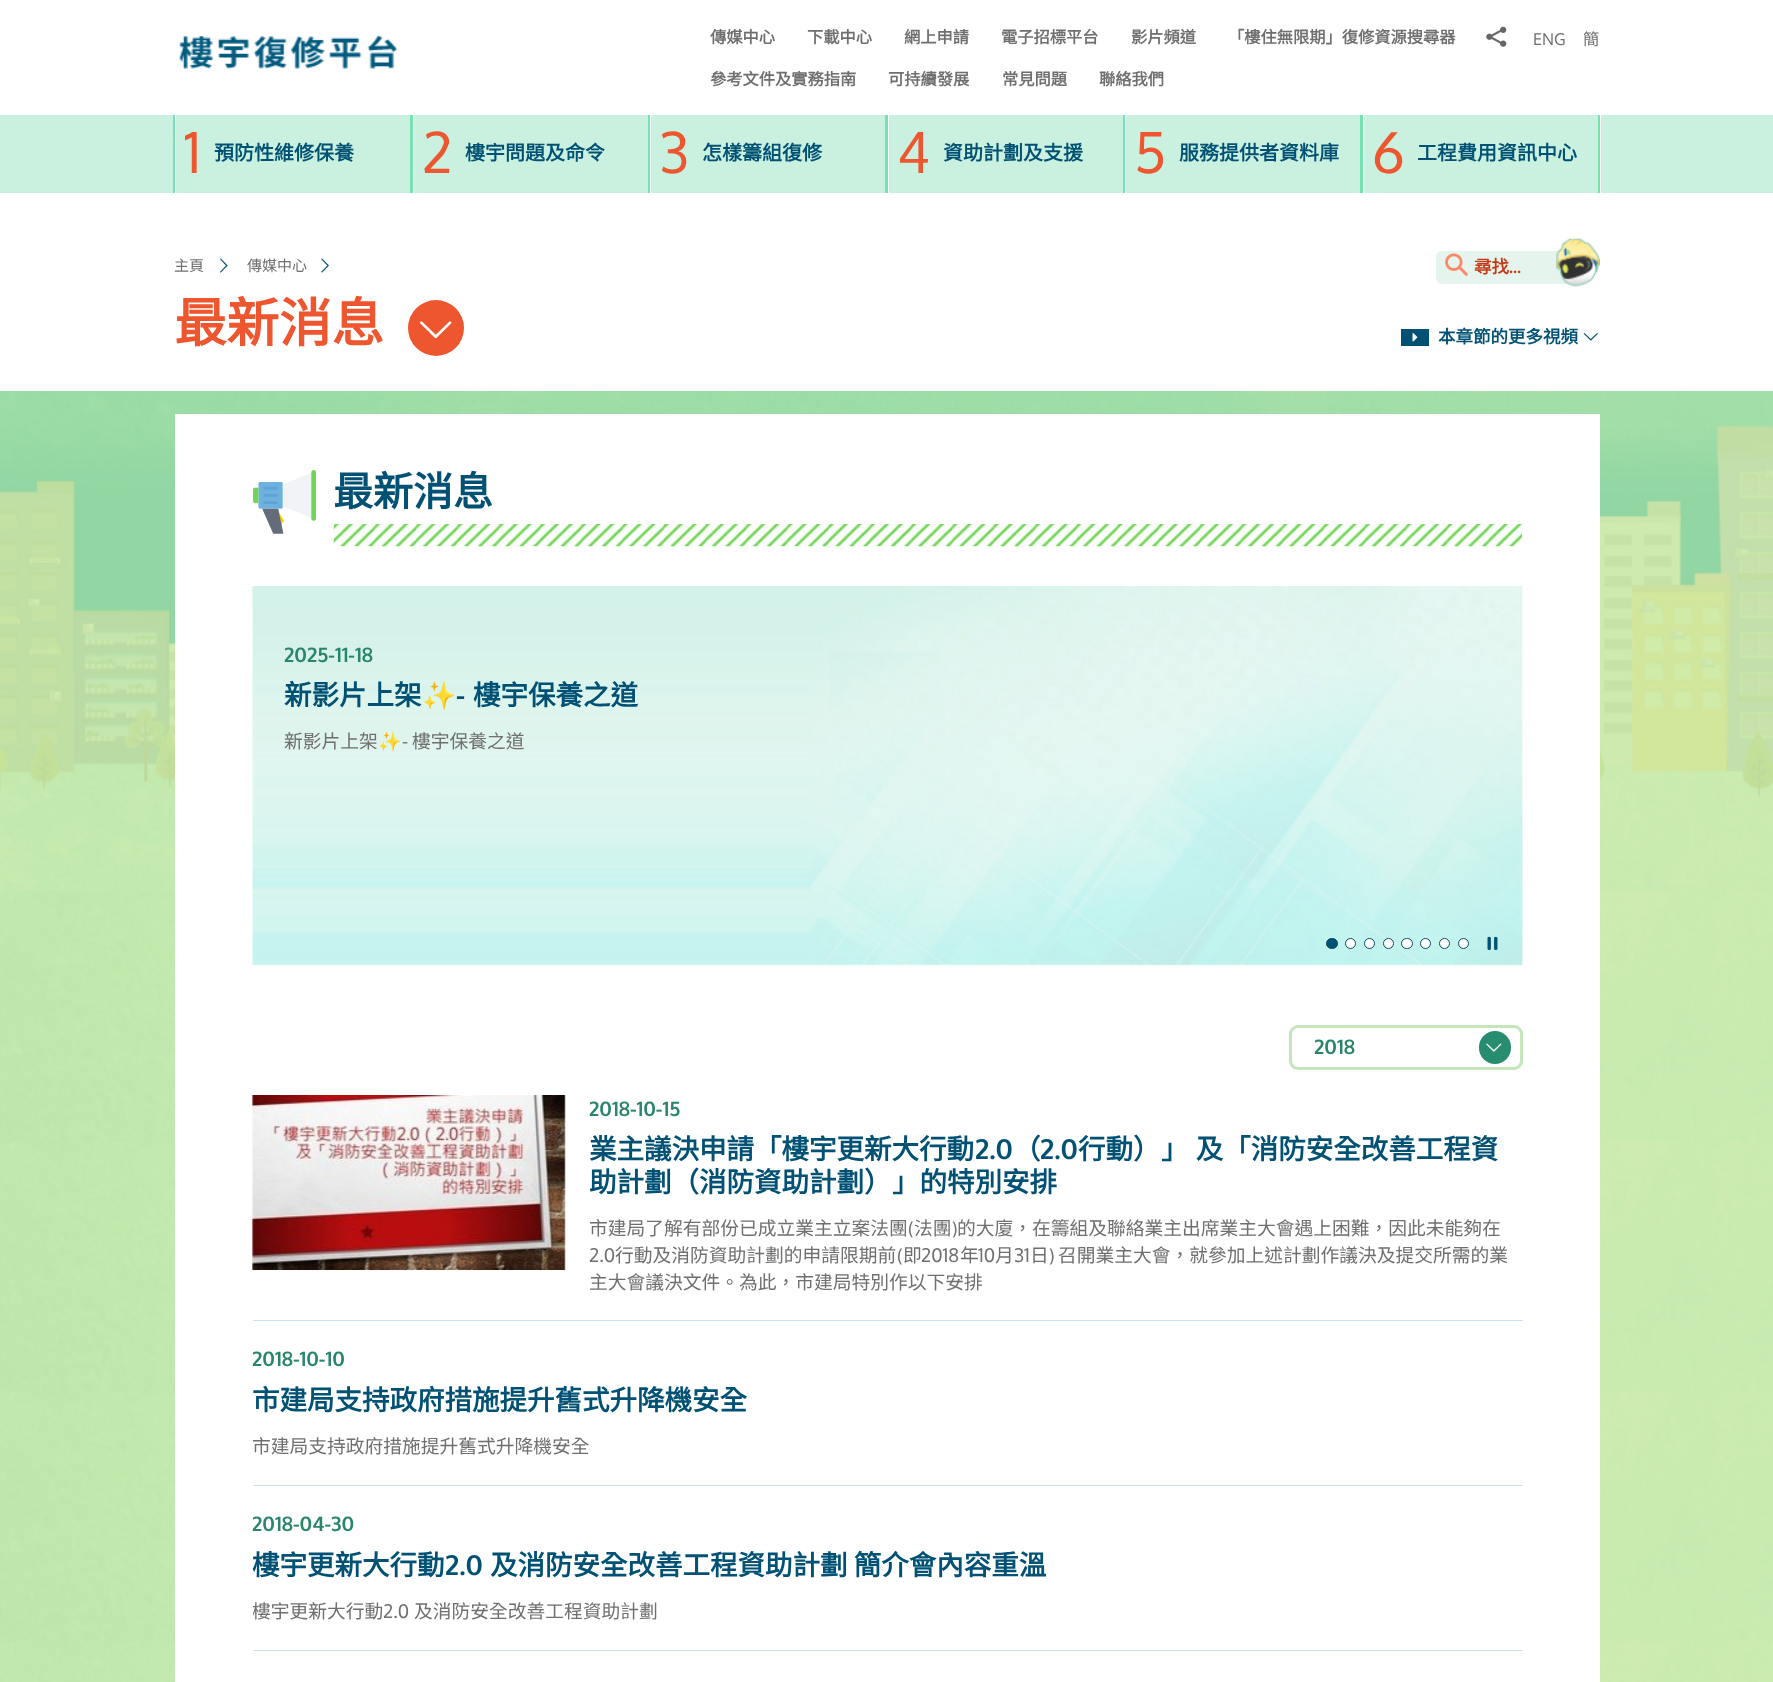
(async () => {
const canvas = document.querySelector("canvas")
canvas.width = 1773
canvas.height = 1682
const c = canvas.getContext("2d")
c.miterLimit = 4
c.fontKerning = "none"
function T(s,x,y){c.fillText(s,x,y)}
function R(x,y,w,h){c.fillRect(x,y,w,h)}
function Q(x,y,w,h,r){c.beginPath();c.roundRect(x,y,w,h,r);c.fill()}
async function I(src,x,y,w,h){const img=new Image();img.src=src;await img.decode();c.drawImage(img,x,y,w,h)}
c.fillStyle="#fff"
R(0,0,1773,1682)
await I("1.png",179,35,219,34)
c.font="bold 16.25px Noto Sans CJK HK"
c.fillStyle="#6f6f6f"
T("傳媒中心",710,43)
T("下載中心",807,43)
T("網上申請",904,43)
T("電子招標平台",1001,43)
T("影片頻道",1131,43)
T("「樓住無限期」復修資源搜尋器",1228,43)
await I("2.png",1486,26,21,21)
c.font="16.25px Oxygen"
T("ENG",1533,45)
c.font="16.25px Noto Sans CJK HK"
T("簡",1583,45)
c.font="bold 16.25px Noto Sans CJK HK"
T("參考文件及實務指南",710,85)
T("可持續發展",888,85)
T("常見問題",1002,85)
T("聯絡我們",1099,85)
c.fillStyle="#caf1df"
R(0,115,1773,78)
c.fillStyle="#75e3b0"
R(173,115,2,78)
R(410,115,3,78)
c.fillStyle="#fff"
R(175,115,1,78)
c.font="56px Oxygen"
c.fillStyle="#ed562e"
T("1",184,173)
c.font="bold 20px Noto Sans CJK HK"
c.fillStyle="#015174"
T("預防性維修保養",214,160)
c.fillStyle="#75e3b0"
R(648,115,2,78)
c.fillStyle="#fff"
R(413,115,1,78)
c.font="56px Oxygen"
c.fillStyle="#ed562e"
T("2",422,173)
c.font="bold 20px Noto Sans CJK HK"
c.fillStyle="#015174"
T("樓宇問題及命令",465,160)
c.fillStyle="#75e3b0"
R(885,115,3,78)
c.fillStyle="#fff"
R(650,115,1,78)
c.font="56px Oxygen"
c.fillStyle="#ed562e"
T("3",659,173)
c.font="bold 20px Noto Sans CJK HK"
c.fillStyle="#015174"
T("怎樣籌組復修",702,160)
c.fillStyle="#75e3b0"
R(1123,115,2,78)
c.fillStyle="#fff"
R(888,115,1,78)
c.font="56px Oxygen"
c.fillStyle="#ed562e"
T("4",897,173)
c.font="bold 20px Noto Sans CJK HK"
c.fillStyle="#015174"
T("資助計劃及支援",943,160)
c.fillStyle="#75e3b0"
R(1360,115,3,78)
c.fillStyle="#fff"
R(1125,115,1,78)
c.font="56px Oxygen"
c.fillStyle="#ed562e"
T("5",1134,173)
c.font="bold 20px Noto Sans CJK HK"
c.fillStyle="#015174"
T("服務提供者資料庫",1179,160)
c.fillStyle="#75e3b0"
R(1598,115,2,78)
c.fillStyle="#fff"
R(1363,115,1,78)
c.font="56px Oxygen"
c.fillStyle="#ed562e"
T("6",1372,173)
c.font="bold 20px Noto Sans CJK HK"
c.fillStyle="#015174"
T("工程費用資訊中心",1417,160)
c.fillStyle="#fff"
R(1600,115,1,78)
c.font="15px Noto Sans CJK HK"
c.fillStyle="#6f6f6f"
T("主頁",174,271)
await I("3.png",220,258,8,15)
T("傳媒中心",247,271)
await I("4.png",321,258,8,15)
c.font="bold 52.5px Noto Sans CJK HK"
c.fillStyle="#ed562e"
T("最新消息",174,342)
c.beginPath()
c.arc(436,328,28,0,7)
c.fill()
await I("5.png",420,321,32,18)
c.fillStyle="#e5f4ed"
Q(1436,251,152,33,6)
await I("6.png",1445,253,23,23)
c.font="bold 17.5px Noto Sans CJK HK"
c.fillStyle="#c53916"
T("尋找",1474,273)
c.font="bold 17.5px Oxygen"
T("...",1509,273)
await I("7.png",1556,238,44,49)
c.fillStyle="#015174"
R(1401,329,28,17)
await I("8.png",1412,333,6,9)
c.font="bold 17.5px Noto Sans CJK HK"
T("本章節的更多視頻",1438,343)
await I("9.png",1583,333,15,8)
await I("10.png",0,891,1773,791)
await I("11.png",0,391,1773,500)
c.fillStyle="#fff"
R(175,414,1425,1268)
await I("12.png",253,470,63,64)
c.font="bold 40px Noto Sans CJK HK"
c.fillStyle="#015174"
T("最新消息",333,506)
await I("13.png",333,524,1189,23)
await I("14.png",252,586,1271,380)
c.font="bold 20px Oxygen"
c.fillStyle="#29856c"
T("2025-11-18",284,662)
c.font="bold 27.5px Noto Sans CJK HK"
c.fillStyle="#015174"
T("新影片上架",284,705)
c.font="bold 27.5px Noto Color Emoji"
T("✨",422,705)
c.font="bold 27.5px Oxygen"
T("-",456,705)
c.font="bold 27.5px Noto Sans CJK HK"
T("樓宇保養之道",473,705)
c.font="18.75px Noto Sans CJK HK"
c.fillStyle="#6f6f6f"
T("新影片上架",284,748)
c.font="18.75px Noto Color Emoji"
T("✨",378,748)
c.font="18.75px Oxygen"
T("-",402,748)
c.font="18.75px Noto Sans CJK HK"
T("樓宇保養之道",412,748)
c.fillStyle="#015174"
c.beginPath()
c.roundRect(1326.5,938.5,11,10,5)
c.fill()
c.strokeStyle="#0c4b60"
c.stroke()
c.fillStyle="#fff"
c.beginPath()
c.arc(1350.5,943.5,5,0,7)
c.fill()
c.stroke()
c.beginPath()
c.arc(1369.5,943.5,5,0,7)
c.fill()
c.stroke()
c.beginPath()
c.arc(1388.5,943.5,5,0,7)
c.fill()
c.stroke()
c.beginPath()
c.roundRect(1401.5,938.5,11,10,5)
c.fill()
c.stroke()
c.beginPath()
c.arc(1425.5,943.5,5,0,7)
c.fill()
c.stroke()
c.beginPath()
c.arc(1444.5,943.5,5,0,7)
c.fill()
c.stroke()
c.beginPath()
c.arc(1463.5,943.5,5,0,7)
c.fill()
c.stroke()
await I("15.png",1487,936,11,14)
c.beginPath()
c.roundRect(1290.5,1026.5,231,42,7.5)
c.strokeStyle="#c4e6ba"
c.lineWidth=3
c.stroke()
c.font="bold 20px Oxygen"
c.fillStyle="#29856c"
T("2018",1314,1054)
c.fillStyle="#288c71"
Q(1479,1031,32,33,16)
await I("16.png",1486,1043,16,9)
c.fillStyle="#cce1f3"
R(253,1320,1270,1)
await I("17.png",252,1095,314,175)
c.fillStyle="#29856c"
T("2018-10-15",589,1116)
c.font="bold 27.5px Noto Sans CJK HK"
c.fillStyle="#015174"
T("業主議決申請「樓宇更新大行動",589,1159)
c.font="bold 27.5px Oxygen"
T("2.0",975,1159)
c.font="bold 27.5px Noto Sans CJK HK"
T("（",1013,1159)
c.font="bold 27.5px Oxygen"
T("2.0",1040,1159)
c.wordSpacing="1px"
c.font="bold 27.5px Noto Sans CJK HK"
T("行動）",1078,1159)
T("」 及「消防安全改善工程資",1161,1159)
c.wordSpacing="0px"
T("助計劃（消防資助計劃）",589,1192)
T("」的特別安排",892,1192)
c.font="18.75px Noto Sans CJK HK"
c.fillStyle="#6f6f6f"
T("市建局了解有部份已成立業主立案法團",589,1235)
c.font="18.75px Oxygen"
T("(",908,1235)
c.font="18.75px Noto Sans CJK HK"
T("法團",914,1235)
c.font="18.75px Oxygen"
T(")",952,1235)
c.font="18.75px Noto Sans CJK HK"
T("的大廈，在籌組及聯絡業主出席業主大會遇上困難，因此未能夠在",957,1235)
c.font="18.75px Oxygen"
T("2.0",589,1262)
c.font="18.75px Noto Sans CJK HK"
T("行動及消防資助計劃的申請限期前",615,1262)
c.font="18.75px Oxygen"
T("(",897,1262)
c.font="18.75px Noto Sans CJK HK"
T("即",903,1262)
c.font="18.75px Oxygen"
T("2018",921,1262)
c.font="18.75px Noto Sans CJK HK"
T("年",960,1262)
c.font="18.75px Oxygen"
T("10",978,1262)
c.font="18.75px Noto Sans CJK HK"
T("月",995,1262)
c.font="18.75px Oxygen"
T("31",1014,1262)
c.font="18.75px Noto Sans CJK HK"
T("日",1030,1262)
c.font="18.75px Oxygen"
T(")",1049,1262)
c.font="18.75px Noto Sans CJK HK"
T("召開業主大會，就參加上述計劃作議決及提交所需的業",1058,1262)
T("主大會議決文件。為此，市建局特別作以下安排",589,1289)
c.fillStyle="#cce1f3"
R(253,1485,1270,1)
c.font="bold 20px Oxygen"
c.fillStyle="#29856c"
T("2018-10-10",252,1366)
c.font="bold 27.5px Noto Sans CJK HK"
c.fillStyle="#015174"
T("市建局支持政府措施提升舊式升降機安全",252,1410)
c.font="18.75px Noto Sans CJK HK"
c.fillStyle="#6f6f6f"
T("市建局支持政府措施提升舊式升降機安全",252,1453)
c.fillStyle="#cce1f3"
R(253,1650,1270,1)
c.font="bold 20px Oxygen"
c.fillStyle="#29856c"
T("2018-04-30",252,1531)
c.font="bold 27.5px Noto Sans CJK HK"
c.fillStyle="#015174"
T("樓宇更新大行動",252,1575)
c.font="bold 27.5px Oxygen"
T("2.0",445,1575)
c.font="bold 27.5px Noto Sans CJK HK"
T("及消防安全改善工程資助計劃 簡介會內容重溫",490,1575)
c.save()
c.beginPath()
c.rect(253,1598,1270,27)
c.clip()
c.font="18.75px Noto Sans CJK HK"
c.fillStyle="#6f6f6f"
T("樓宇更新大行動",252,1618)
c.restore()
c.font="18.75px Oxygen"
c.fillStyle="#6f6f6f"
T("2.0",383,1618)
c.font="18.75px Noto Sans CJK HK"
T("及消防安全改善工程資助計劃",414,1618)
})()
